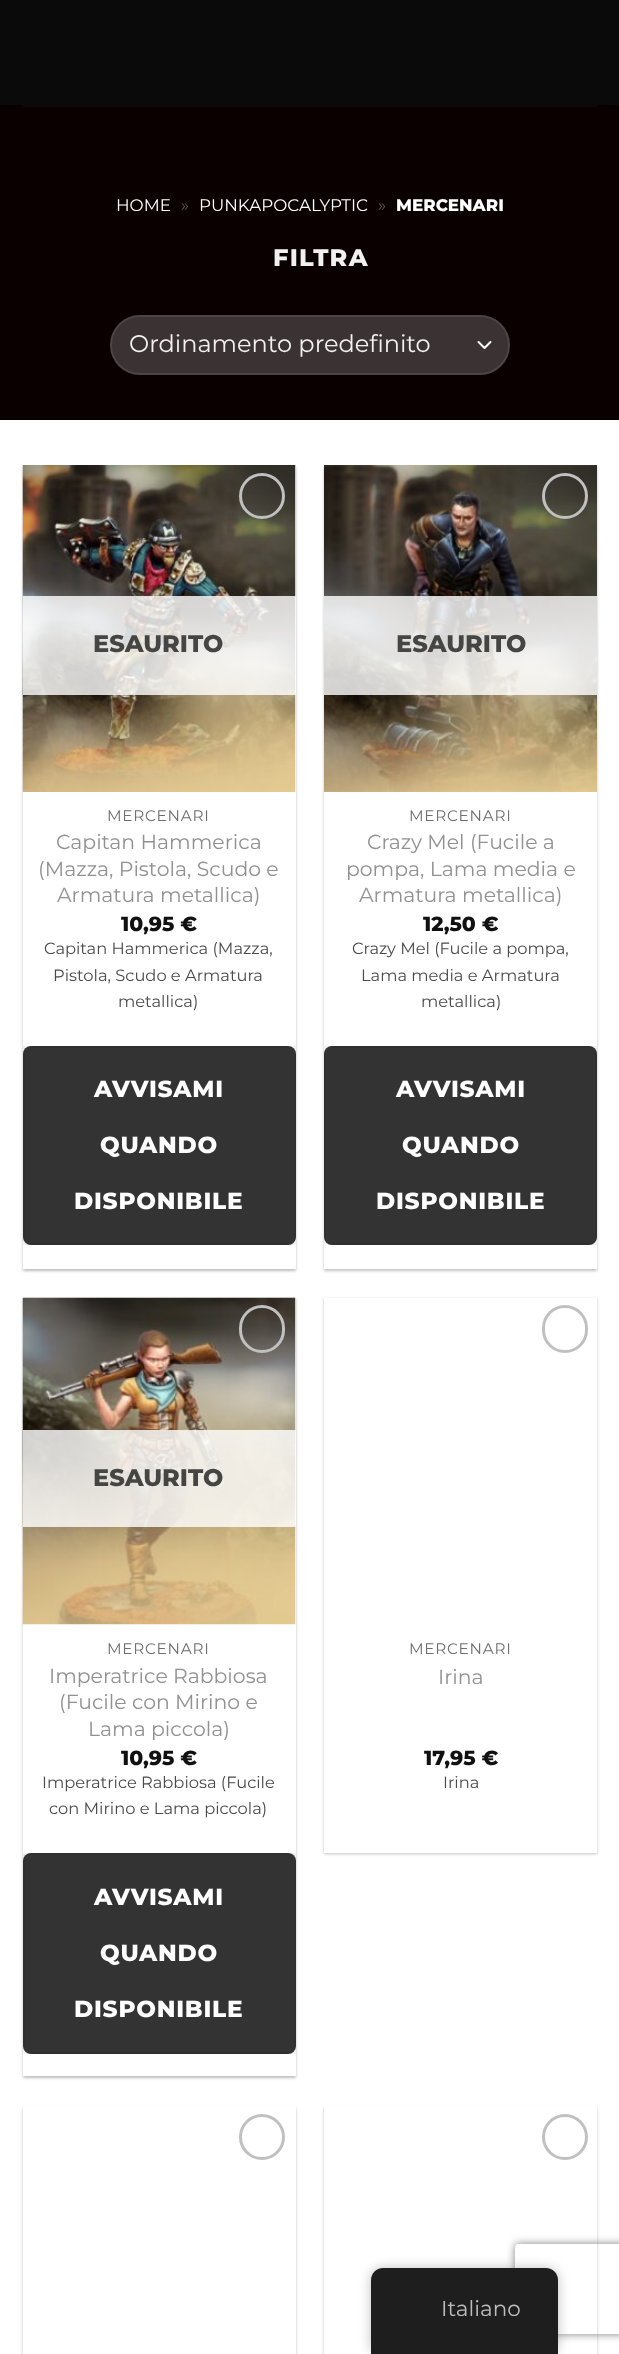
(async () => {
const canvas = document.querySelector("canvas")
canvas.width = 619
canvas.height = 2354
const c = canvas.getContext("2d")
c.miterLimit = 4
c.fontKerning = "normal"
function T(s,x,y){c.fillText(s,x,y)}
function R(x,y,w,h){c.fillRect(x,y,w,h)}
function Q(x,y,w,h,r){c.beginPath();c.roundRect(x,y,w,h,r);c.fill()}
async function I(src,x,y,w,h){const img=new Image();img.src=src;await img.decode();c.drawImage(img,x,y,w,h)}
let path
c.fillStyle="#fff"
R(0,0,619,2354)
c.fillStyle="#0a0a0a"
R(0,0,619,105)
c.fillStyle="#0a0000"
R(0,105,619,315)
c.fillStyle="#100707"
R(23,105,574,2)
c.font="16.75px Montserrat"
c.fillStyle="#fff"
T("HOME",116,211)
c.fillStyle="#605959"
T("»",181,211)
c.fillStyle="#fff"
T("PUNKAPOCALYPTIC",199,211)
c.fillStyle="#605959"
T("»",378,211)
c.font="800 16.75px Montserrat"
c.fillStyle="#fff"
T("MERCENARI",396,211)
c.letterSpacing="1.25px"
c.font="800 24px Montserrat"
c.fillStyle="#f1f1f1"
T("FILTRA",273,266)
c.fillStyle="#3b3333"
Q(110,315,400,60,30)
path = new Path2D("M478.5 342l6 6l6-6")
c.strokeStyle="#fff"
c.lineWidth=2
c.lineCap="round"
c.lineJoin="round"
c.stroke(path)
c.beginPath()
c.roundRect(111,316,398,58,29)
c.strokeStyle="#ffffff17"
c.lineJoin="miter"
c.stroke()
c.letterSpacing="0px"
c.font="24px Montserrat"
c.fillStyle="#f1f1f1"
T("Ordinamento predefinito",129,352)
c.fillStyle="#0000003d"
c.filter="blur(1.5px)"
c.beginPath()
c.rect(23,467,273,804)
c.fill()
c.filter="none"
c.fillStyle="#0000001f"
c.filter="blur(2px)"
c.beginPath()
c.rect(26,470,267,798)
c.fill()
c.filter="none"
c.fillStyle="#fff"
R(23,465,273,804)
await I("1.png",22,465,274,327)
c.beginPath()
c.arc(262,496,21.5,0,7)
c.strokeStyle="#c0c0c0"
c.lineWidth=3
c.stroke()
c.fillStyle="#ffffffcf"
R(23,596,273,99)
c.font="800 24px Montserrat"
c.fillStyle="#454544"
T("ESAURITO",93,652)
c.letterSpacing="0.75px"
c.font="15.25px Montserrat"
c.fillStyle="#6e6e6e"
T("MERCENARI",107,821)
c.letterSpacing="0px"
c.font="20.4px Montserrat"
c.fillStyle="#919191"
T("Capitan Hammerica",56,849)
T("(Mazza, Pistola, Scudo e",38,876)
T("Armatura metallica)",57,902)
c.font="800 20.4px Montserrat"
c.fillStyle="#111"
T("10,95 €",121,931)
c.font="16.3px Montserrat"
c.fillStyle="#4a4a4a"
T("Capitan Hammerica (Mazza,",44,954)
T("Pistola, Scudo e Armatura",53,981)
T("metallica)",118,1007)
c.fillStyle="#333"
Q(23,1046,273,199,8)
c.strokeStyle="#0000000d"
c.lineWidth=2
c.strokeRect(24,1047,271,197)
c.letterSpacing="0.75px"
c.font="800 23.25px Montserrat"
c.fillStyle="#fff"
T("AVVISAMI",94,1097)
T("QUANDO",100,1153)
T("DISPONIBILE",74,1209)
c.save()
path = new Path2D("M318 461h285v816h-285zm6 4h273v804h-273z")
c.clip(path,"evenodd")
c.fillStyle="#0000003d"
c.filter="blur(1.5px)"
c.beginPath()
c.rect(324,467,273,804)
c.fill()
c.filter="none"
c.restore()
await I("2.png",324,465,273,327)
c.beginPath()
c.arc(565,496,21.5,0,7)
c.strokeStyle="#c0c0c0"
c.lineWidth=3
c.stroke()
c.fillStyle="#ffffffcf"
R(324,596,273,99)
c.letterSpacing="0px"
c.font="800 24px Montserrat"
c.fillStyle="#454544"
T("ESAURITO",396,652)
c.letterSpacing="0.75px"
c.font="15.25px Montserrat"
c.fillStyle="#6e6e6e"
T("MERCENARI",409,821)
c.letterSpacing="0px"
c.font="20.4px Montserrat"
c.fillStyle="#919191"
T("Crazy Mel (Fucile a",367,849)
T("pompa, Lama media e",346,876)
T("Armatura metallica)",359,902)
c.font="800 20.4px Montserrat"
c.fillStyle="#111"
T("12,50 €",423,931)
c.font="16.3px Montserrat"
c.fillStyle="#4a4a4a"
T("Crazy Mel (Fucile a pompa,",352,954)
T("Lama media e Armatura",361,981)
T("metallica)",421,1007)
c.fillStyle="#333"
Q(324,1046,273,199,8)
c.strokeStyle="#0000000d"
c.lineWidth=2
c.strokeRect(325,1047,271,197)
c.letterSpacing="0.75px"
c.font="800 23.25px Montserrat"
c.fillStyle="#fff"
T("AVVISAMI",396,1097)
T("QUANDO",402,1153)
T("DISPONIBILE",376,1209)
c.fillStyle="#0000003d"
c.filter="blur(1.5px)"
c.beginPath()
c.rect(23,1299,273,779)
c.fill()
c.filter="none"
c.fillStyle="#0000001f"
c.filter="blur(2px)"
c.beginPath()
c.rect(26,1302,267,773)
c.fill()
c.filter="none"
c.fillStyle="#fff"
R(23,1298,273,778)
await I("3.png",22,1297,274,328)
c.beginPath()
c.roundRect(240.5,1306.5,43,45,21.5)
c.strokeStyle="#c0c0c0"
c.lineWidth=3
c.stroke()
c.fillStyle="#ffffffcf"
R(23,1430,273,97)
c.letterSpacing="0px"
c.font="800 24px Montserrat"
c.fillStyle="#454544"
T("ESAURITO",93,1486)
c.letterSpacing="0.75px"
c.font="15.25px Montserrat"
c.fillStyle="#6e6e6e"
T("MERCENARI",107,1654)
c.letterSpacing="0px"
c.font="20.4px Montserrat"
c.fillStyle="#919191"
T("Imperatrice Rabbiosa",49,1683)
T("(Fucile con Mirino e",59,1709)
T("Lama piccola)",88,1736)
c.font="800 20.4px Montserrat"
c.fillStyle="#111"
T("10,95 €",121,1765)
c.font="16.3px Montserrat"
c.fillStyle="#4a4a4a"
T("Imperatrice Rabbiosa (Fucile",42,1788)
T("con Mirino e Lama piccola)",49,1814)
c.fillStyle="#333"
Q(23,1853,273,201,8)
c.strokeStyle="#0000000d"
c.lineWidth=2
c.strokeRect(24,1854,271,199)
c.letterSpacing="0.75px"
c.font="800 23.25px Montserrat"
c.fillStyle="#fff"
T("AVVISAMI",94,1905)
T("QUANDO",100,1961)
T("DISPONIBILE",74,2017)
c.fillStyle="#0000003d"
c.filter="blur(1.5px)"
c.beginPath()
c.rect(324,1299,273,555)
c.fill()
c.filter="none"
c.fillStyle="#fff"
R(324,1298,273,555)
c.beginPath()
c.roundRect(543.5,1306.5,43,45,21.5)
c.strokeStyle="#c0c0c0"
c.lineWidth=3
c.stroke()
c.font="15.25px Montserrat"
c.fillStyle="#6e6e6e"
T("MERCENARI",409,1654)
c.letterSpacing="0px"
c.font="20.4px Montserrat"
c.fillStyle="#919191"
T("Irina",438,1684)
c.font="800 20.4px Montserrat"
c.fillStyle="#111"
T("17,95 €",424,1765)
c.font="16.3px Montserrat"
c.fillStyle="#4a4a4a"
T("Irina",443,1788)
c.fillStyle="#0000003d"
c.filter="blur(1.5px)"
c.beginPath()
c.rect(23,2108,273,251)
c.fill()
c.filter="none"
c.fillStyle="#fff"
R(23,2106,273,248)
c.beginPath()
c.arc(262,2137,21.5,0,7)
c.stroke()
c.save()
path = new Path2D("M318 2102h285v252h-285zm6 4h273v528h-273z")
c.clip(path,"evenodd")
c.fillStyle="#0000003d"
c.filter="blur(1.5px)"
c.beginPath()
c.rect(324,2108,273,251)
c.fill()
c.filter="none"
c.restore()
c.beginPath()
c.arc(565,2137,21.5,0,7)
c.stroke()
c.fillStyle="#00000040"
c.filter="blur(6px)"
c.beginPath()
c.roundRect(371,2268,187,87,12)
c.fill()
c.filter="none"
c.save()
path = new Path2D("M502 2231h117v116h-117zm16 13h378c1.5 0 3 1.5 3 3v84c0 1.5-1.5 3-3 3h-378c-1.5 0-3-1.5-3-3v-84c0-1.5 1.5-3 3-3z")
c.clip(path,"evenodd")
c.fillStyle="#808080"
c.filter="blur(4px)"
c.beginPath()
c.roundRect(515,2244,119,90,3)
c.fill()
c.filter="none"
c.restore()
c.fillStyle="#1e1e1e"
path = new Path2D("M383 2268h163c6.5 0 12 5.5 12 12v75h-187v-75c0-6.5 5.5-12 12-12z")
c.fill(path)
c.font="21.5px Montserrat"
c.fillStyle="#bdbdbd"
T("Italiano",441,2316)
})()
